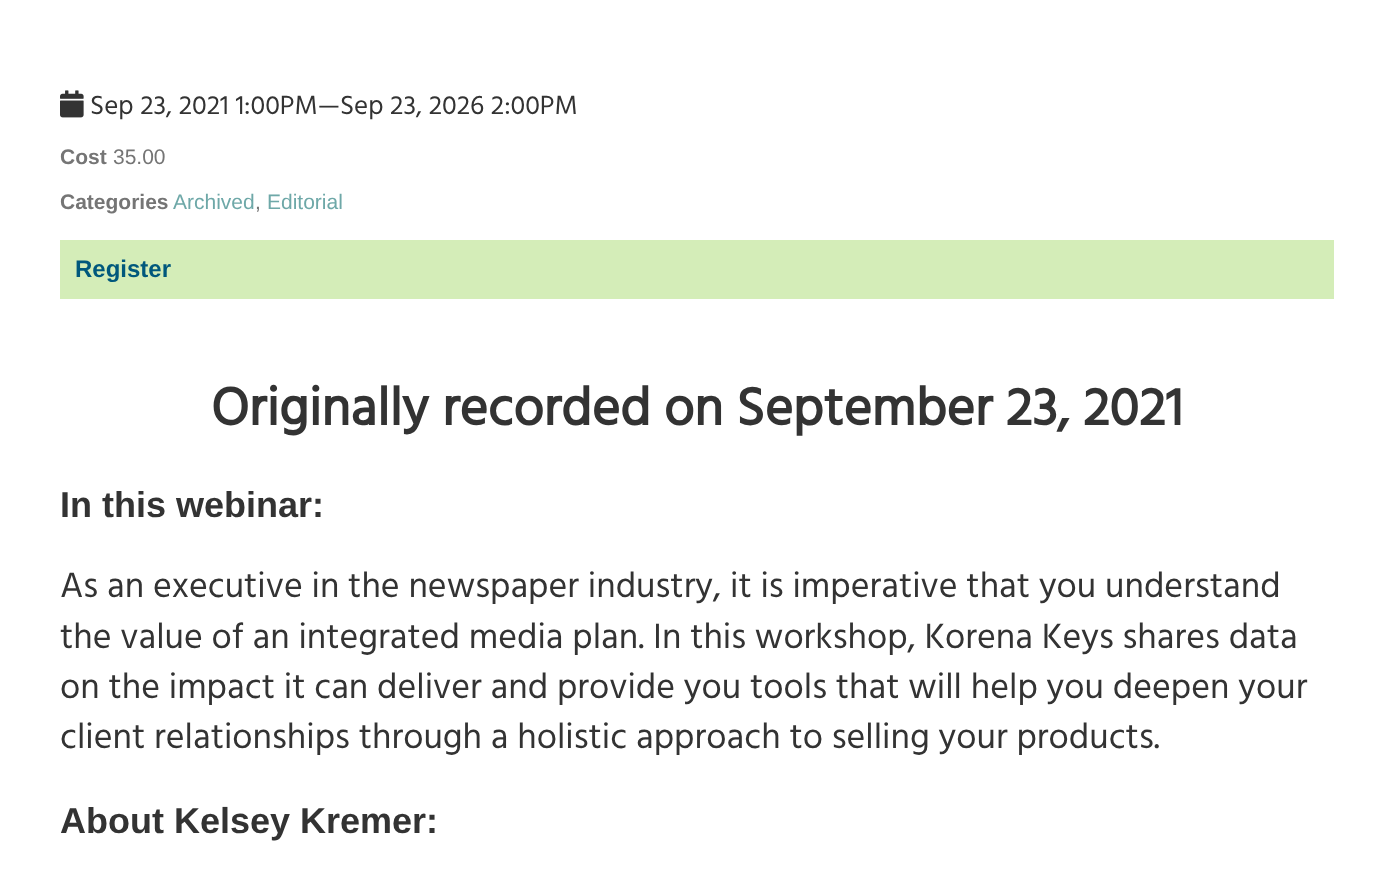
(async () => {
const canvas = document.querySelector("canvas")
canvas.width = 1393
canvas.height = 892
const c = canvas.getContext("2d")
c.miterLimit = 4
c.fontKerning = "normal"
function T(s,x,y){c.fillText(s,x,y)}
function R(x,y,w,h){c.fillRect(x,y,w,h)}
async function I(src,x,y,w,h){const img=new Image();img.src=src;await img.decode();c.drawImage(img,x,y,w,h)}
c.fillStyle="#fff"
R(0,0,1393,892)
await I("1.png",60,90,24,28)
c.font="27px Hind"
c.fillStyle="#333"
T("Sep 23, 2021 1:00PM—Sep 23, 2026 2:00PM",90,114)
c.font="bold 21px Liberation Sans"
c.fillStyle="#757575"
T("Cost",60,164)
c.font="21px Liberation Sans"
T("35.00",113,164)
c.font="bold 21px Liberation Sans"
T("Categories",60,209)
c.font="21px Liberation Sans"
c.fillStyle="#6ea8a8"
T("Archived",173,209)
c.fillStyle="#757575"
T(",",255,209)
c.fillStyle="#6ea8a8"
T("Editorial",267,209)
c.fillStyle="#d4edb8"
R(60,240,1274,59)
c.font="bold 24px Liberation Sans"
c.fillStyle="#00587c"
T("Register",75,277)
c.font="bold 54px Hind"
c.fillStyle="#333"
T("Originally recorded on September 23, 2021",211,425)
c.font="bold 36px Liberation Sans"
T("In this webinar:",60,517)
c.font="36px Hind"
T("As an executive in the newspaper industry, it is imperative that you understand",60,597)
T("the value of an integrated media plan. In this workshop, Korena Keys shares data",60,648)
T("on the impact it can deliver and provide you tools that will help you deepen your",60,698)
T("client relationships through a holistic approach to selling your products.",60,748)
c.font="bold 36px Liberation Sans"
T("About Kelsey Kremer:",60,833)
})()
